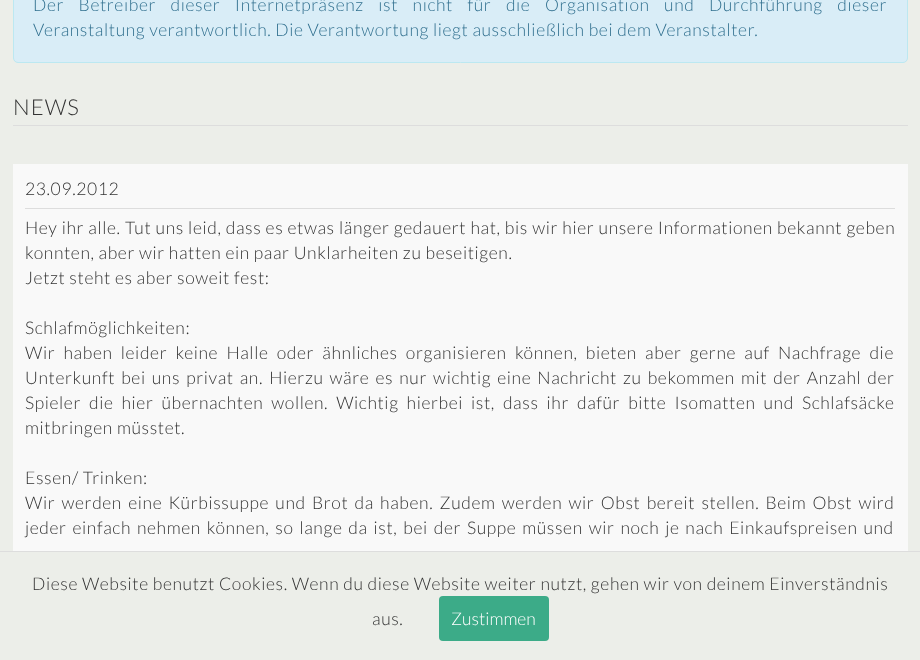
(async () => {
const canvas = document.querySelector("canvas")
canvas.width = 920
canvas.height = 660
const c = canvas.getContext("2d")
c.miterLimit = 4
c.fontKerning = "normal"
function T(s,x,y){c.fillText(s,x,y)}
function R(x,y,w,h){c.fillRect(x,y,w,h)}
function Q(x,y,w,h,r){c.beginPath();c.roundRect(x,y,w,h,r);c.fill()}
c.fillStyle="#eceee9"
R(0,0,920,660)
c.fillStyle="#d9edf7"
c.beginPath()
c.roundRect(13.5,-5.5,894,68,4.5)
c.fill()
c.strokeStyle="#bce8f1"
c.stroke()
c.letterSpacing="0.62px"
c.wordSpacing="10.5px"
c.font="300 17.5px Lato"
c.fillStyle="#31708f"
T("Der Betreiber dieser Internetpräsenz ist nicht für die Organisation und Durchführung dieser",33,11)
c.wordSpacing="0px"
T("Veranstaltung verantwortlich. Die Verantwortung liegt ausschließlich bei dem Veranstalter.",33,36)
c.fillStyle="#ddd"
R(13,125,895,1)
c.letterSpacing="1px"
c.font="300 22px Lato"
c.fillStyle="#333"
T("NEWS",13,115)
c.fillStyle="#f9f9f9"
R(13,164,895,387)
c.fillStyle="#ddd"
R(25,208,870,1)
c.letterSpacing="0.62px"
c.font="300 17.5px Lato"
c.fillStyle="#333"
T("23.09.2012",25,195)
c.wordSpacing="0.25px"
T("Hey ihr alle. Tut uns leid, dass es etwas länger gedauert hat, bis wir hier unsere Informationen bekannt geben",25,234)
c.wordSpacing="0px"
T("konnten, aber wir hatten ein paar Unklarheiten zu beseitigen.",25,259)
T("Jetzt steht es aber soweit fest:",25,284)
T("Schlafmöglichkeiten:",25,334)
c.wordSpacing="4.25px"
T("Wir haben leider keine Halle oder ähnliches organisieren können, bieten aber gerne auf Nachfrage die",25,359)
c.wordSpacing="2.1px"
T("Unterkunft bei uns privat an. Hierzu wäre es nur wichtig eine Nachricht zu bekommen mit der Anzahl der",25,384)
c.wordSpacing="4px"
T("Spieler die hier übernachten wollen. Wichtig hierbei ist, dass ihr dafür bitte Isomatten und Schlafsäcke",25,409)
c.wordSpacing="0px"
T("mitbringen müsstet.",25,434)
T("Essen/ Trinken:",25,484)
c.wordSpacing="2.25px"
T("Wir werden eine Kürbissuppe und Brot da haben. Zudem werden wir Obst bereit stellen. Beim Obst wird",25,509)
c.wordSpacing="1.9px"
T("jeder einfach nehmen können, so lange da ist, bei der Suppe müssen wir noch je nach Einkaufspreisen und",25,534)
c.fillStyle="#ddd"
R(0,551,920,1)
c.wordSpacing="0px"
c.fillStyle="#333"
T("Diese Website benutzt Cookies. Wenn du diese Website weiter nutzt, gehen wir von deinem Einverständnis",32,590)
T("aus.",372,625)
c.fillStyle="#3cab88"
Q(439,596,110,45,4)
c.letterSpacing="0px"
c.fillStyle="#fff"
T("Zustimmen",451,625)
})()
